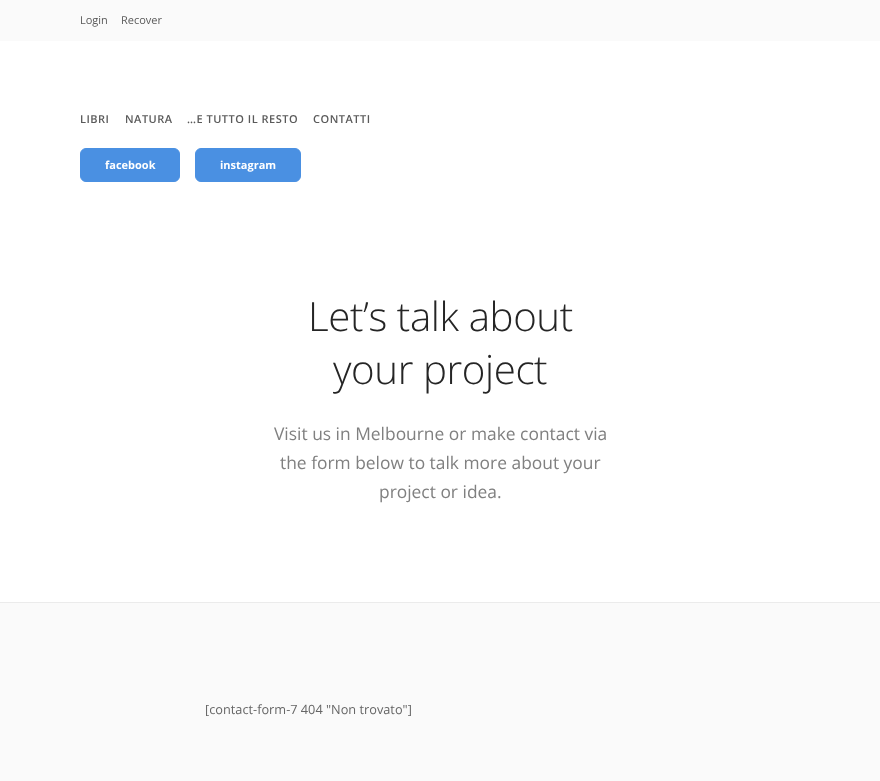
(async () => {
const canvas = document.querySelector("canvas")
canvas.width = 880
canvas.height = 781
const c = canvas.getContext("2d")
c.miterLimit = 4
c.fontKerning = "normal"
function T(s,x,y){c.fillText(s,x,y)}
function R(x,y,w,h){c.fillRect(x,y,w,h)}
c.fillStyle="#fff"
R(0,0,880,781)
c.fillStyle="#fafafa"
R(0,0,880,41)
c.font="11px Open Sans"
c.fillStyle="#5a5a5a"
T("Login",80,24)
T("Recover",121,24)
c.letterSpacing="0.5px"
c.font="600 11px Open Sans"
T("LIBRI",80,123)
T("NATURA",125,123)
T("…E TUTTO IL RESTO",187,123)
T("CONTATTI",313,123)
c.fillStyle="#4a90e2"
c.beginPath()
c.roundRect(80.5,148.5,99,33,5.5)
c.fill()
c.strokeStyle="#4a90e2"
c.stroke()
c.letterSpacing="0px"
c.font="bold 11px Open Sans"
c.fillStyle="#fff"
T("facebook",105,169)
c.fillStyle="#4a90e2"
c.beginPath()
c.roundRect(195.5,148.5,105,33,5.5)
c.fill()
c.stroke()
c.fillStyle="#fff"
T("instagram",220,169)
c.letterSpacing="-0.4px"
c.font="300 40.25px Open Sans"
c.fillStyle="#252525"
T("Let’s talk about",308,331)
T("your project",333,384)
c.letterSpacing="0px"
c.font="17.4px Open Sans"
c.fillStyle="#808080"
T("Visit us in Melbourne or make contact via",274,440)
T("the form below to talk more about your",280,469)
T("project or idea.",379,498)
c.fillStyle="#fafafa"
R(0,603,880,178)
c.fillStyle="#ebebeb"
R(0,602,880,1)
c.font="12.75px Open Sans"
c.fillStyle="#666"
T("[contact-form-7 404 \"Non trovato\"]",205,714)
})()
